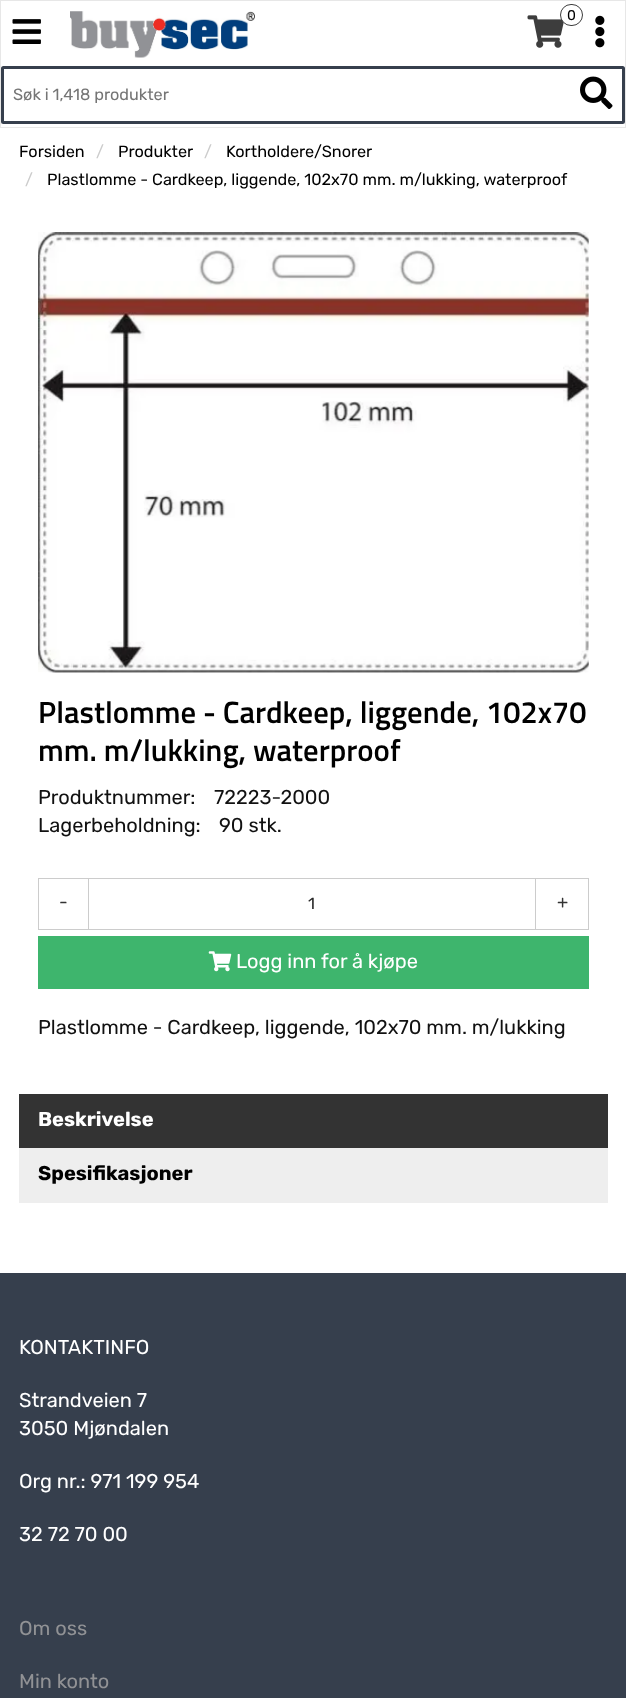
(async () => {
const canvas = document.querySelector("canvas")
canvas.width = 626
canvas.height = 1698
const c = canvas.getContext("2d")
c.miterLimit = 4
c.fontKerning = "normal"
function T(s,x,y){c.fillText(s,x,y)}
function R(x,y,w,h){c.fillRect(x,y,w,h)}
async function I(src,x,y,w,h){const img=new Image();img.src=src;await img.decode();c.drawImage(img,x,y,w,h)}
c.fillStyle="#fff"
R(0,0,626,1698)
c.strokeStyle="#e7e7e7"
c.strokeRect(.5,.5,625,127)
await I("1.png",12,19,29,25)
await I("2.png",70,11,185,47)
await I("3.png",527,15,37,33)
c.beginPath()
c.roundRect(560.5,4.5,22,21,10.5)
c.fill()
c.strokeStyle="#3d3d3d"
c.stroke()
c.font="14px Rubik"
c.fillStyle="#000"
T("0",567,20)
await I("4.png",595,15,10,33)
c.beginPath()
c.roundRect(2.5,67.5,621,55,1)
c.strokeStyle="#363f4d"
c.lineWidth=3
c.stroke()
c.font="16.25px Rubik"
c.fillStyle="#757575"
T("Søk i 1,418 produkter",13,100)
await I("5.png",580,76,33,33)
c.fillStyle="#000"
T("Forsiden",19,157)
c.fillStyle="#ccc"
T("/",96,157)
c.fillStyle="#000"
T("Produkter",118,157)
c.fillStyle="#ccc"
T("/",204,157)
c.fillStyle="#000"
T("Kortholdere/Snorer",226,157)
c.fillStyle="#ccc"
T("/",25,185)
c.fillStyle="#000"
T("Plastlomme - Cardkeep, liggende, 102x70 mm. m/lukking, waterproof",47,185)
await I("6.png",38,232,551,441)
c.font="600 30.75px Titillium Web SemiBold"
T("Plastlomme - Cardkeep, liggende, 102x70",38,723)
T("mm. m/lukking, waterproof",38,761)
c.font="20px Rubik"
c.fillStyle="#111"
T("Produktnummer:",38,804)
T("72223-2000",214,804)
T("Lagerbeholdning:",38,832)
T("90 stk.",219,832)
c.strokeStyle="#ccc"
c.lineWidth=1
c.strokeRect(38.5,878.5,50,51)
c.font="18px Rubik"
c.fillStyle="#333"
T("-",59,908)
c.strokeRect(88.5,878.5,447,51)
c.font="16.25px Rubik"
c.fillStyle="#292929"
T("1",308,909)
c.strokeRect(535.5,878.5,53,51)
c.font="18px Rubik"
c.fillStyle="#333"
T("+",557,908)
c.fillStyle="#3eb56d"
R(38,936,551,53)
await I("7.png",208,951,24,21)
c.font="20px Rubik"
c.fillStyle="#fff"
T("Logg inn for å kjøpe",236,968)
c.fillStyle="#111"
T("Plastlomme - Cardkeep, liggende, 102x70 mm. m/lukking",38,1034)
c.fillStyle="#333"
R(19,1094,589,54)
c.font="bold 20px Rubik"
c.fillStyle="#fff"
T("Beskrivelse",38,1126)
c.fillStyle="#eee"
R(19,1148,589,55)
c.fillStyle="#000"
T("Spesifikasjoner",38,1180)
c.fillStyle="#363f4d"
R(0,1273,626,425)
c.font="20px Rubik"
c.fillStyle="#fff"
T("KONTAKTINFO",19,1354)
T("Strandveien 7",19,1407)
T("3050 Mjøndalen",19,1435)
T("Org nr.: 971 199 954",19,1488)
T("32 72 70 00",19,1541)
c.fillStyle="#919295"
T("Om oss",19,1635)
T("Min konto",19,1688)
})()
